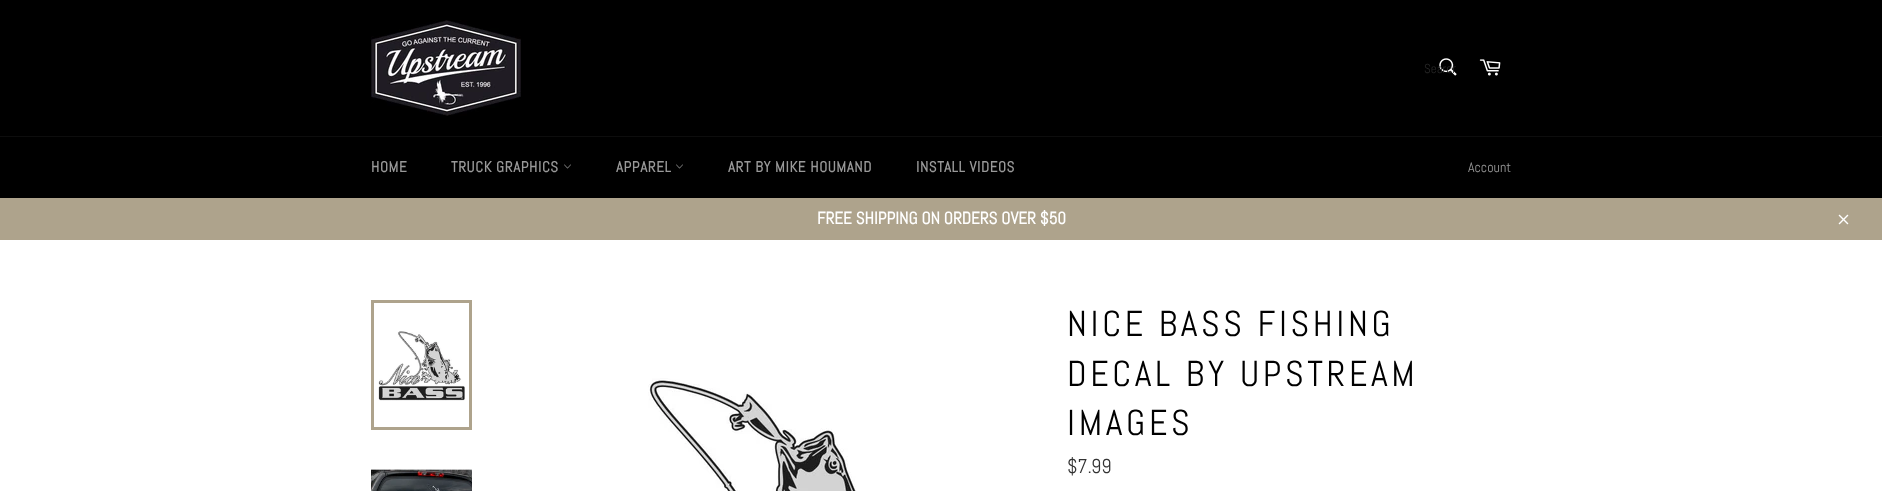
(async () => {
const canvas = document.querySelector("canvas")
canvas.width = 1882
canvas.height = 491
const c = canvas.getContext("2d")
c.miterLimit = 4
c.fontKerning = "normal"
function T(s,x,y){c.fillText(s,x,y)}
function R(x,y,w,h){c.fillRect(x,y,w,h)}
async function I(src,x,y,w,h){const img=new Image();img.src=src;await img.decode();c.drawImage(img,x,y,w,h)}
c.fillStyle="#fff"
R(0,0,1882,491)
c.fillStyle="#000"
R(0,0,1882,136)
await I("1.png",371,20,150,96)
await I("2.png",1439,58,18,18)
c.save()
c.beginPath()
c.rect(1424,60,32,17)
c.clip()
c.font="13px Abel"
c.fillStyle="#272727"
T("Search",1424,73)
c.restore()
await I("3.png",1479,59,22,17)
R(0,137,1882,61)
c.fillStyle="#0d0d0d"
R(0,136,1882,1)
c.letterSpacing="0.6px"
c.font="bold 15px Abel"
c.fillStyle="#999"
T("HOME",371,172)
T("TRUCK GRAPHICS",451,172)
await I("4.png",564,164,7,5)
T("APPAREL",616,172)
await I("4.png",676,164,7,5)
T("ART BY MIKE HOUMAND",728,172)
T("INSTALL VIDEOS",916,172)
c.letterSpacing="0px"
c.font="14px Abel"
T("Account",1468,172)
c.fillStyle="#aea38c"
R(0,198,1882,42)
c.font="bold 17px Abel"
c.fillStyle="#fff"
T("FREE SHIPPING ON ORDERS OVER $50",817,224)
await I("5.png",1838,214,11,11)
await I("6.png",378,331,87,70)
c.strokeStyle="#aea38c"
c.lineWidth=3
c.strokeRect(372.5,301.5,98,127)
await I("7.png",371,469,101,22)
await I("8.png",648,378,208,113)
c.letterSpacing="3.6px"
c.font="36px Abel"
c.fillStyle="#000"
T("NICE BASS FISHING",1067,336)
T("DECAL BY UPSTREAM",1067,386)
T("IMAGES",1067,435)
c.letterSpacing="0px"
c.font="20px Abel"
c.fillStyle="#333"
T("$7.99",1067,473)
})()
